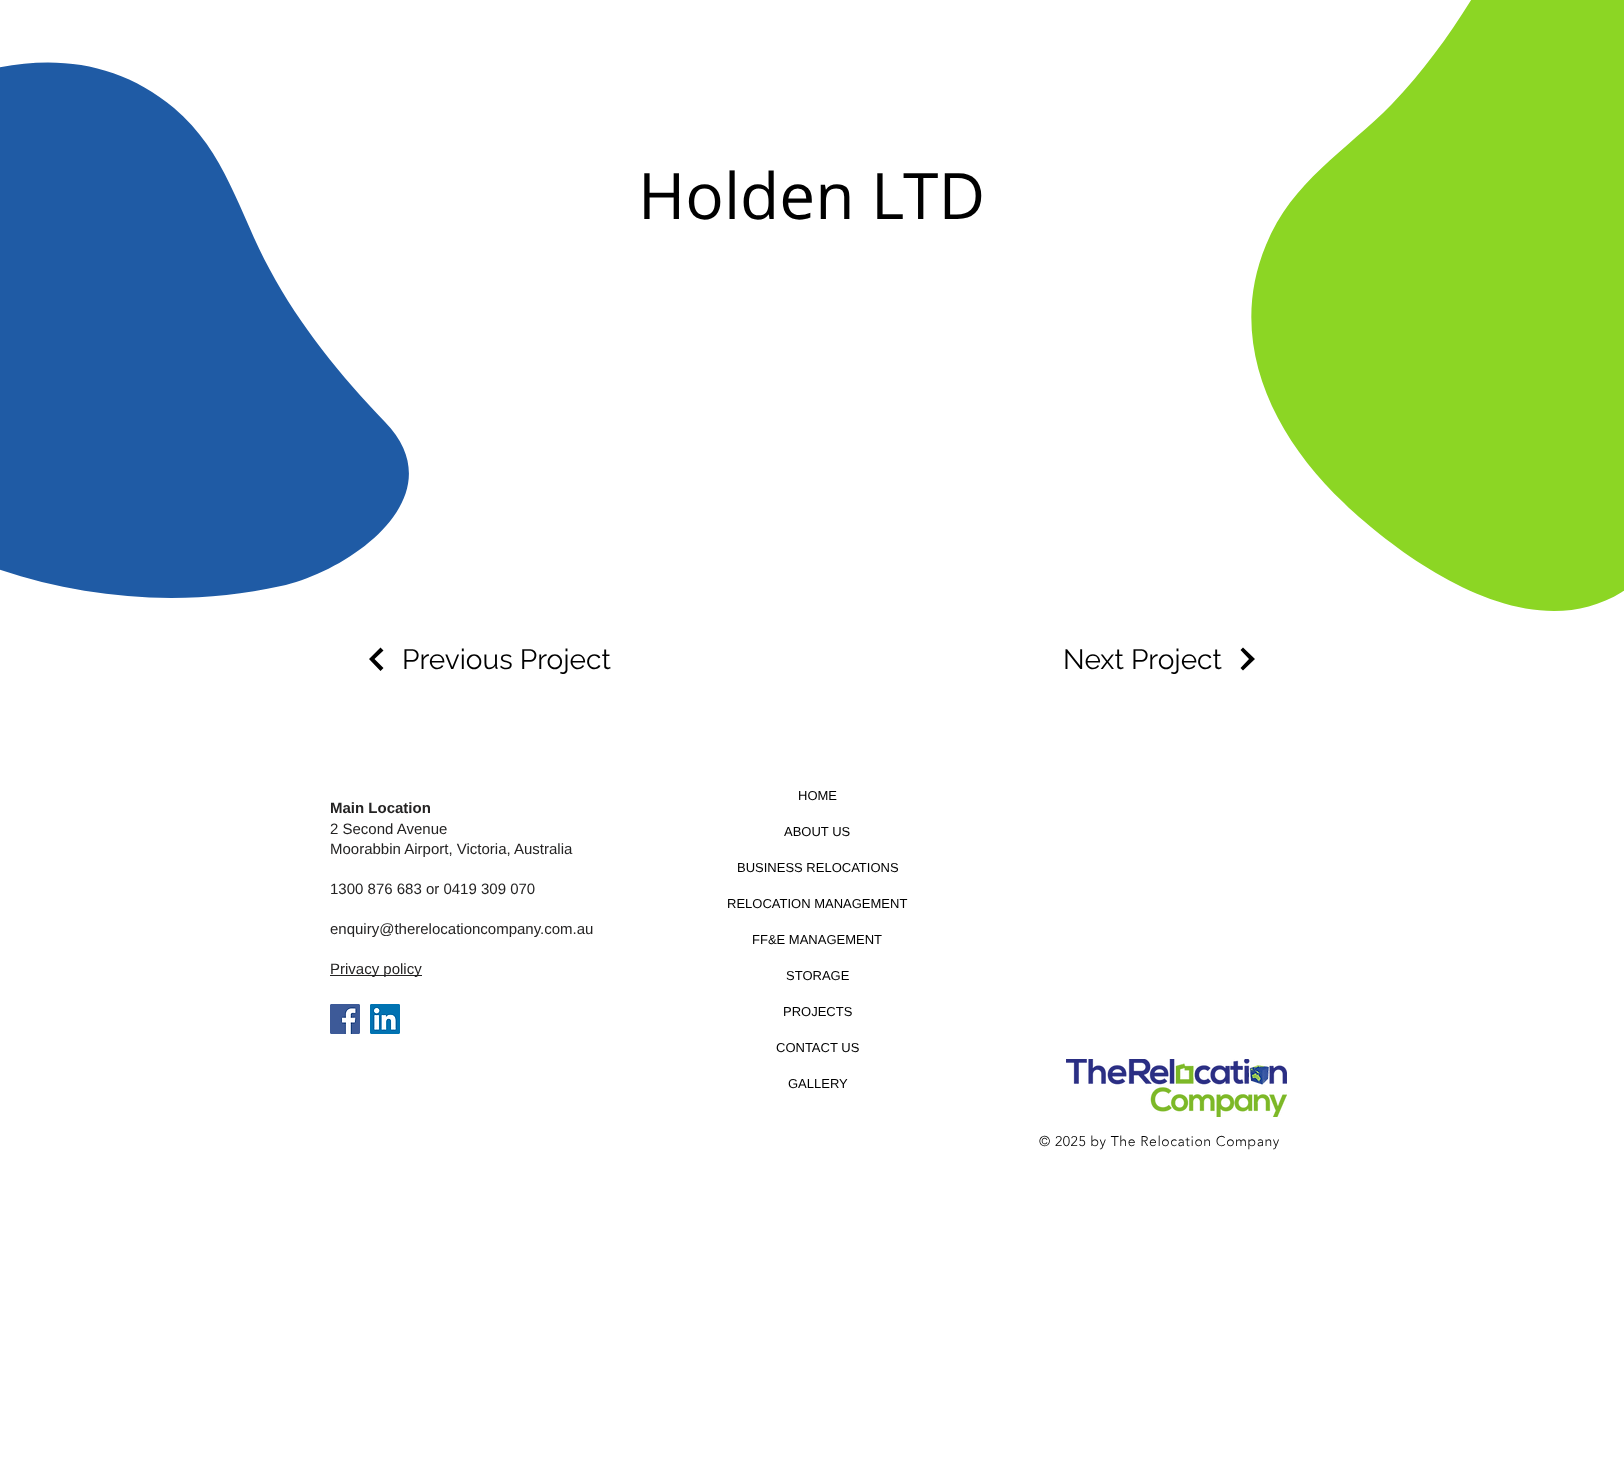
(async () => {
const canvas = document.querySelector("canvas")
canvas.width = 1624
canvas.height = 1469
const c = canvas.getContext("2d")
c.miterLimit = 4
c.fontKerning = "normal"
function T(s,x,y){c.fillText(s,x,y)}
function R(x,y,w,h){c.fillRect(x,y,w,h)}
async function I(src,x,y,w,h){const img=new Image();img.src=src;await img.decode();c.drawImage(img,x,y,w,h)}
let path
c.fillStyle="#fff"
R(0,0,1624,1469)
c.fillStyle="#1f5ba5"
path = new Path2D("M-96 104l-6 3c-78 45-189 133-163 236c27 108 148 184 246 220c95 36 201 45 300 23c69-15 176-90 104-164c-44-46-85-96-115-152c-31-57-44-118-96-162c-80-68-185-52-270-4z")
c.fill(path)
c.font="64px Open Sans"
c.fillStyle="#000"
T("Holden LTD",638,219)
path = new Path2D("M369 659l11.5-11.5l3 3l-9 8.5l9 9l-3 3z")
c.fill(path)
c.font="28px Raleway"
T("Previous Project",402,669)
T("Next Project",1063,669)
path = new Path2D("M1255 659l-12 11.5l-2.5-2.5l8.5-9l-8.5-9l2.5-2.5z")
c.fill(path)
c.fillStyle="#8cd624"
path = new Path2D("M1344 503l5 5c66 60 183 140 273 84c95-58 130-197 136-302c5-101-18-204-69-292c-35-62-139-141-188-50c-30 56-65 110-109 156c-46 47-100 77-126 141c-40 96 7 191 78 258z")
c.fill(path)
c.font="bold 15px Liberation Sans"
c.fillStyle="#242323"
T("Main Location",330,813)
c.font="15px Liberation Sans"
T("2 Second Avenue",330,834)
T("Moorabbin Airport, Victoria, Australia",330,854)
T("1300 876 683 or 0419 309 070",330,894)
T("enquiry@therelocationcompany.com.au",330,934)
R(330,975,92,1)
T("Privacy policy",330,974)
c.font="13px Liberation Sans"
c.fillStyle="#000"
T("HOME",798,800)
T("ABOUT US",784,836)
T("BUSINESS RELOCATIONS",737,872)
T("RELOCATION MANAGEMENT",727,908)
T("FF&E MANAGEMENT",752,944)
T("STORAGE",786,980)
T("PROJECTS",783,1016)
T("CONTACT US",776,1052)
T("GALLERY",788,1088)
await I("1.png",330,1004,30,30)
await I("2.png",370,1004,30,30)
await I("3.png",1066,1059,221,58)
c.letterSpacing="0.55px"
c.font="300 14px 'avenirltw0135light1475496'"
T("© 2025 by The Relocation Company",1039,1146)
})()
